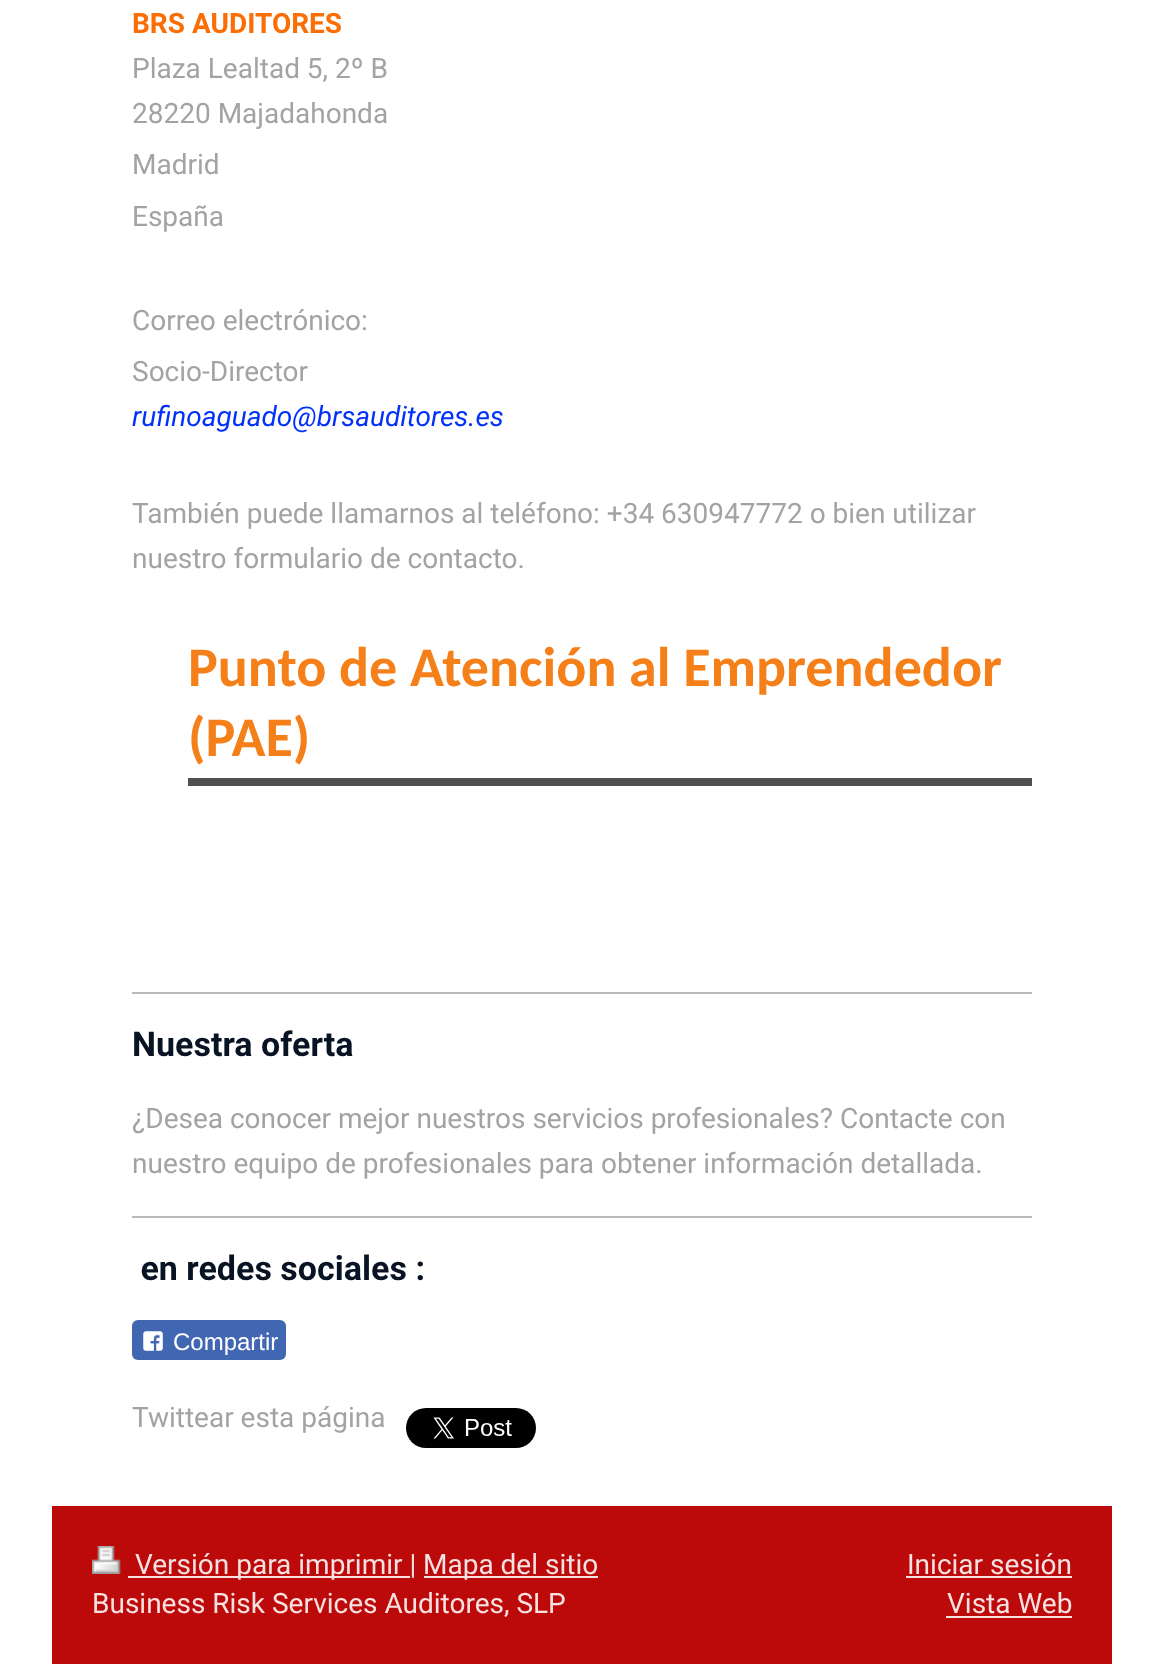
(async () => {
const canvas = document.querySelector("canvas")
canvas.width = 1163
canvas.height = 1664
const c = canvas.getContext("2d")
c.miterLimit = 4
c.fontKerning = "normal"
function T(s,x,y){c.fillText(s,x,y)}
function R(x,y,w,h){c.fillRect(x,y,w,h)}
function Q(x,y,w,h,r){c.beginPath();c.roundRect(x,y,w,h,r);c.fill()}
async function I(src,x,y,w,h){const img=new Image();img.src=src;await img.decode();c.drawImage(img,x,y,w,h)}
c.fillStyle="#fff"
R(0,0,1163,1664)
c.font="bold 28px Roboto"
c.fillStyle="#fb6e05"
T("BRS AUDITORES",132,33)
c.font="28px Roboto"
c.fillStyle="#a3a3a3"
T("Plaza Lealtad 5, 2º B",132,78)
T("28220 Majadahonda",132,123)
T("Madrid",132,174)
T("España",132,226)
T("Correo electrónico:",132,330)
T("Socio-Director",132,381)
c.font="italic 28px Roboto"
c.fillStyle="#0231f9"
T("rufinoaguado@brsauditores.es",132,426)
c.font="28px Roboto"
c.fillStyle="#a3a3a3"
T("También puede llamarnos al teléfono: +34 630947772 o bien utilizar",132,523)
T("nuestro formulario de contacto.",132,568)
c.fillStyle="#4f4f4f"
R(188,778,844,8)
c.font="bold 56px Carlito"
c.fillStyle="#f57f18"
T("Punto de Atención al Emprendedor",188,686)
T("(PAE)",188,756)
c.fillStyle="#bababa"
R(132,992,900,2)
c.font="bold 34px Roboto"
c.fillStyle="#081324"
T("Nuestra oferta",132,1056)
c.font="28px Roboto"
c.fillStyle="#a3a3a3"
T("¿Desea conocer mejor nuestros servicios profesionales? Contacte con",132,1128)
T("nuestro equipo de profesionales para obtener información detallada.",132,1173)
c.fillStyle="#bababa"
R(132,1216,900,2)
c.font="bold 34px Roboto"
c.fillStyle="#081324"
T(" en redes sociales :",132,1280)
c.fillStyle="#4267b2"
Q(132,1320,154,40,6)
await I("1.png",143,1331,20,20)
c.font="24px Liberation Sans"
c.fillStyle="#fff"
T("Compartir",173,1350)
c.font="28px Roboto"
c.fillStyle="#a3a3a3"
T("Twittear esta página",132,1427)
await I("2.png",406,1408,130,40)
c.fillStyle="#bc0a0a"
R(52,1506,1060,158)
await I("3.png",92,1546,29,28)
c.fillStyle="#f8e1e1"
R(128,1576,282,2)
T("Versión para imprimir |",135,1574)
R(424,1576,174,2)
T("Mapa del sitio",423,1574)
T("Business Risk Services Auditores, SLP",92,1613)
T("Iniciar sesión",907,1574)
R(906,1576,166,2)
T("Vista Web",947,1613)
R(946,1616,126,2)
})()
